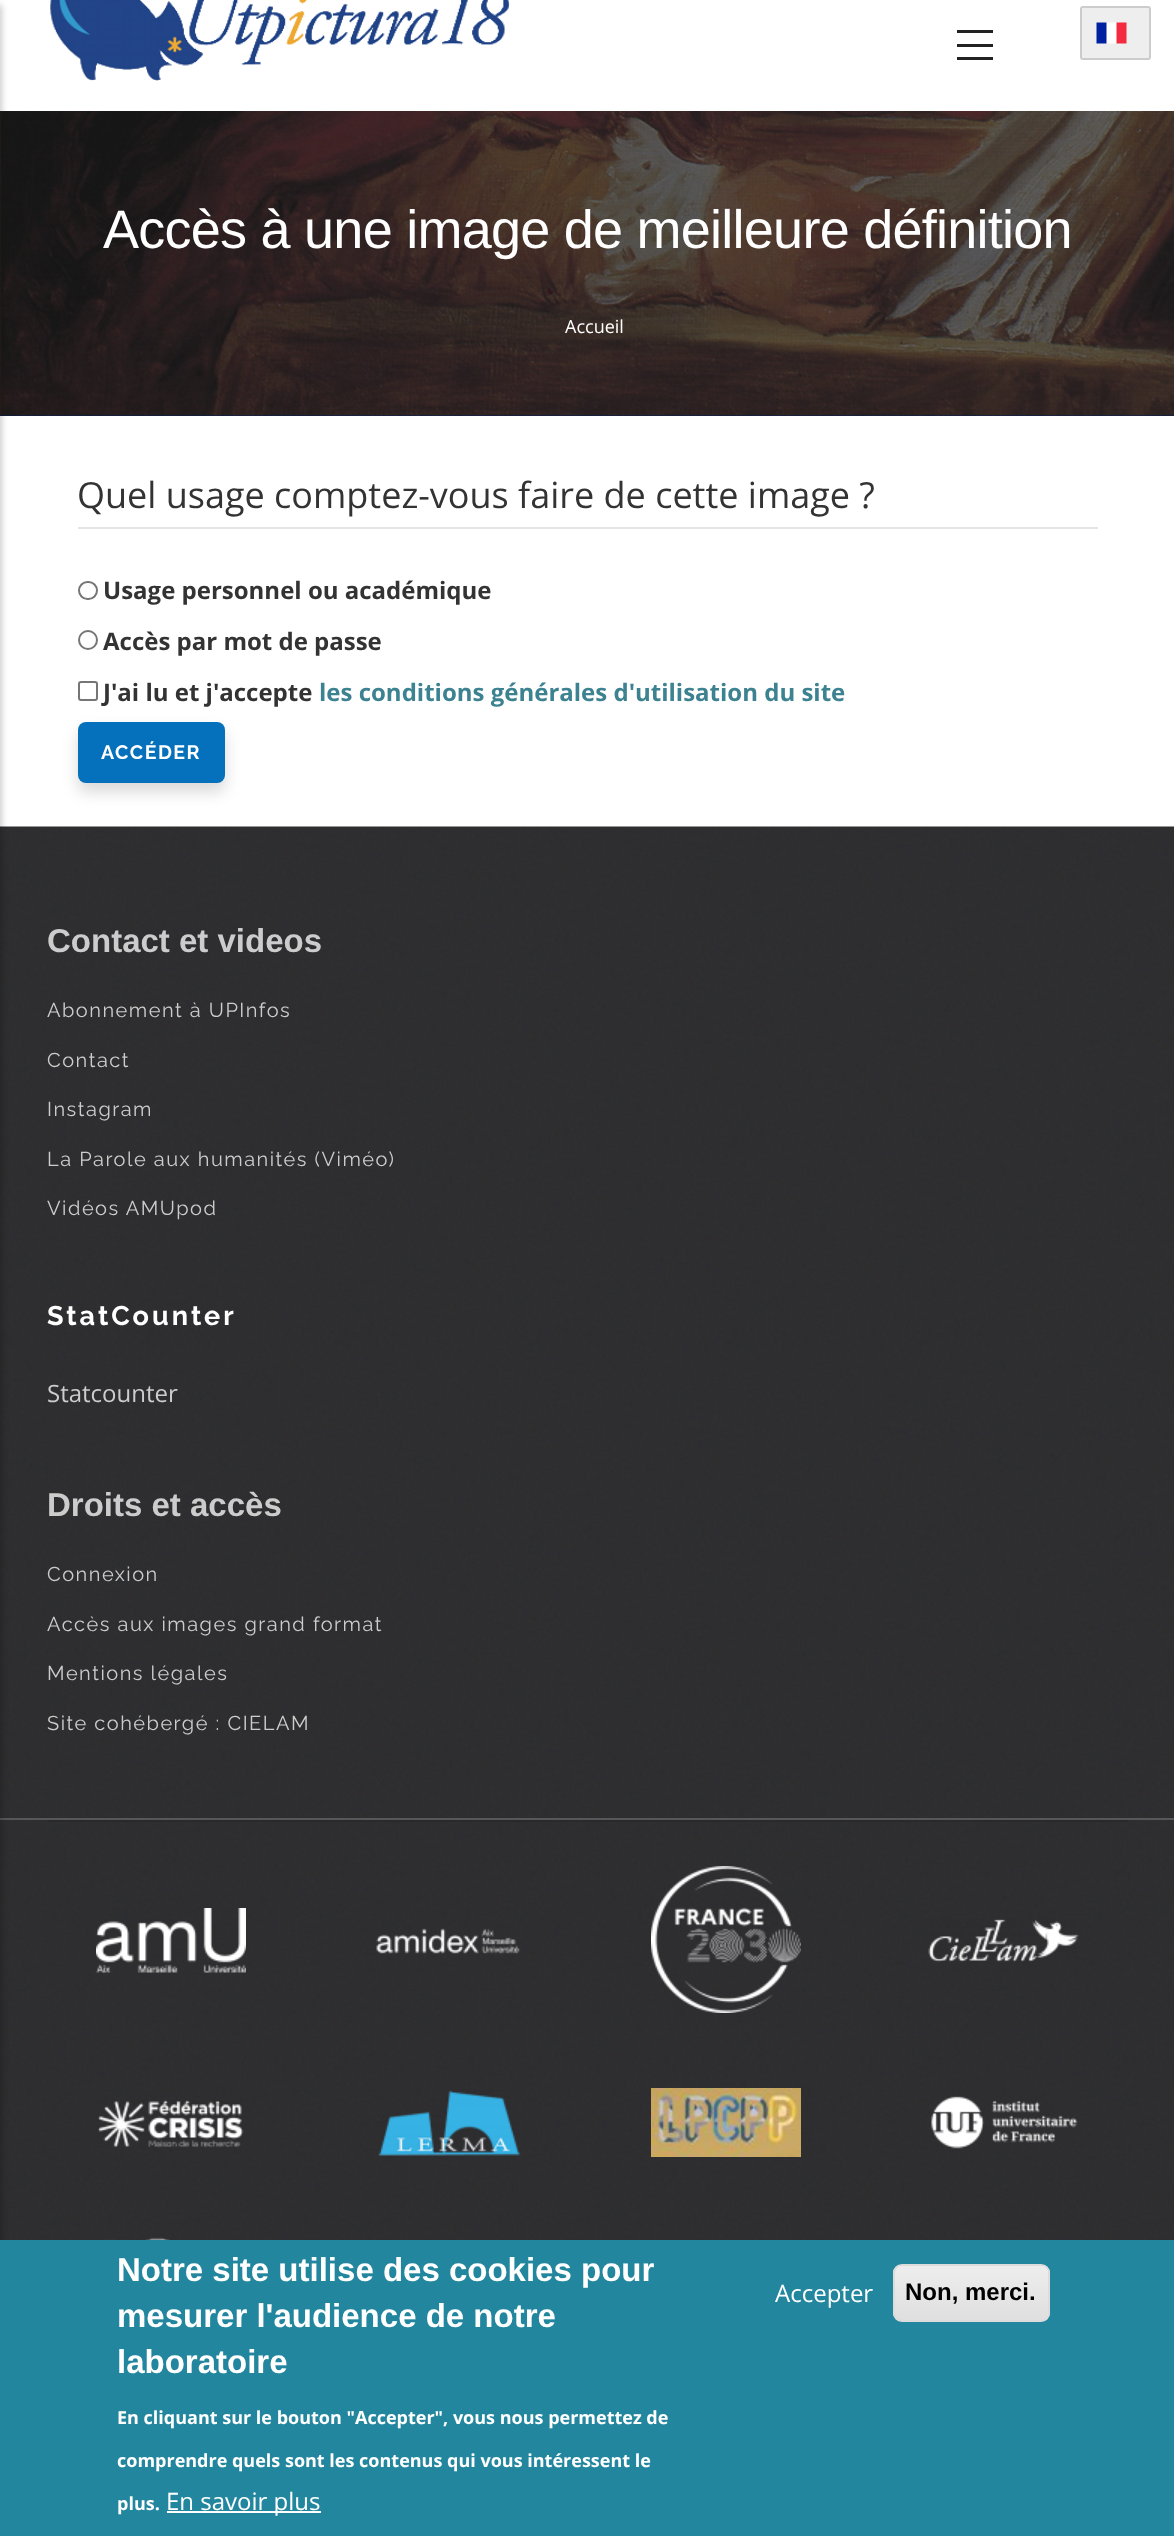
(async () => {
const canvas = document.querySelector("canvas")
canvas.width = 1174
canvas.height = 2536
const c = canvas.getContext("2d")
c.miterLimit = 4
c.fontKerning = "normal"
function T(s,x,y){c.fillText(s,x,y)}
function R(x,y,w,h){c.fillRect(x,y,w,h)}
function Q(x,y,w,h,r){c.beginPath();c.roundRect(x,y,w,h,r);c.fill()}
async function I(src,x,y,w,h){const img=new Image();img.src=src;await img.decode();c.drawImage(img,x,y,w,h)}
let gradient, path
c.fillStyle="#fff"
R(0,0,1174,2536)
c.fillStyle="#01205a"
R(0,415,1174,1)
await I("3.png",0,111,1174,305)
await I("4.png",0,826,1174,992)
await I("5.png",0,1818,1174,422)
c.fillStyle="#ffffff33"
R(0,1818,1174,2)
c.fillStyle="#00000033"
c.filter="blur(3px)"
c.beginPath()
c.rect(-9,5,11,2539)
c.fill()
c.filter="none"
c.fillStyle="#222"
R(957,30,36,3)
R(957,44,36,3)
R(957,57,36,3)
await I("1.png",50,0,460,81)
c.fillStyle="#eee"
c.beginPath()
c.roundRect(1081,7,69,52,2)
c.fill()
c.strokeStyle="#ccc"
c.lineWidth=2
c.stroke()
await I("2.png",1096,22,31,22)
c.letterSpacing="-0.75px"
c.font="54px Liberation Sans"
c.fillStyle="#fff"
T("Accès à une image de meilleure définition",103,248)
c.letterSpacing="0px"
c.font="18px Open Sans"
T("Accueil",565,333)
c.fillStyle="#e5e5e5"
R(78,527,1020,2)
c.font="36px Open Sans"
c.fillStyle="#333"
T("Quel usage comptez-vous faire de cette image ?",77,508)
c.beginPath()
c.roundRect(79,582,18,17,8.5)
c.strokeStyle="#767676"
c.stroke()
c.font="bold 24px Open Sans"
T("Usage personnel ou académique",103,599)
c.beginPath()
c.arc(88,640,9,0,7)
c.stroke()
T("Accès par mot de passe",103,650)
c.beginPath()
c.roundRect(79,682,18,18,2)
c.stroke()
T("J'ai lu et j'accepte",103,701)
c.fillStyle="#3d8291"
T("les conditions générales d'utilisation du site",319,701)
c.fillStyle="#00000026"
c.filter="blur(7.5px)"
c.beginPath()
c.roundRect(78,731,147,61,8)
c.fill()
c.filter="none"
c.fillStyle="#0570bb"
Q(78,722,147,61,8)
c.letterSpacing="1.5px"
c.font="bold 19.5px Raleway"
c.fillStyle="#fff"
T("ACCÉDER",101,759)
c.letterSpacing="0px"
c.font="bold 33px Liberation Sans"
c.fillStyle="#ccc"
T("Contact et videos",47,952)
c.letterSpacing="1.5px"
c.font="20px Raleway"
T("Abonnement à UPInfos",47,1017)
T("Contact",47,1067)
T("Instagram",47,1116)
T("La Parole aux humanités (Viméo)",47,1166)
T("Vidéos AMUpod",47,1215)
c.letterSpacing="3px"
c.font="bold 27px Raleway"
c.fillStyle="#fff"
T("StatCounter",47,1325)
c.letterSpacing="0px"
c.font="24px Open Sans"
c.fillStyle="#ccc"
T("Statcounter",47,1402)
c.font="bold 33px Liberation Sans"
T("Droits et accès",47,1516)
c.letterSpacing="1.5px"
c.font="20px Raleway"
T("Connexion",47,1581)
T("Accès aux images grand format",47,1631)
T("Mentions légales",47,1680)
T("Site cohébergé : CIELAM",47,1730)
c.fillStyle="#0000001a"
R(48,1820,1080,2)
await I("6.png",96,1908,150,65)
await I("7.png",376,1928,144,26)
await I("8.png",651,1866,150,147)
await I("9.png",928,1919,151,43)
await I("10.png",98,2100,146,48)
await I("11.png",378,2090,143,66)
await I("12.png",651,2088,150,69)
await I("13.png",931,2096,147,53)
await I("14.png",102,2237,68,3)
c.fillStyle="#22879e"
R(0,2240,1174,296)
c.letterSpacing="0px"
c.font="bold 33px Liberation Sans"
c.fillStyle="#fff"
T("Notre site utilise des cookies pour",117,2281)
T("mesurer l'audience de notre",117,2327)
T("laboratoire",117,2373)
c.font="bold 18px Open Sans"
T("En cliquant sur le bouton \"Accepter\", vous nous permettez de",117,2424)
T("comprendre quels sont les contenus qui vous intéressent le",117,2467)
T("plus.",117,2510)
R(167,2511,154,2)
c.font="24px Open Sans"
T("En savoir plus",166,2510)
T("Accepter",775,2302)
c.save()
c.beginPath()
c.roundRect(893,2264,157,58,9)
c.clip()
gradient = c.createLinearGradient(971,2265,971,2321)
gradient.addColorStop(.05,"#ededed")
gradient.addColorStop(1,"#dfdfdf")
c.fillStyle = gradient
R(893,2265,157,56)
c.restore()
path = new Path2D("M902 2266h139c4 0 7 4 7 8v40l-1 4c1-1 2-3 2-5v-40c0-4-4-8-8-8h-139c-4 0-8 4-8 8v1c0-4 3-8 8-8z")
c.fill(path)
c.beginPath()
c.roundRect(894,2265,155,56,8)
c.strokeStyle="#dcdcdc"
c.stroke()
c.font="bold 24px Liberation Sans"
c.fillStyle="#000"
T("Non, merci.",905,2300)
})()
